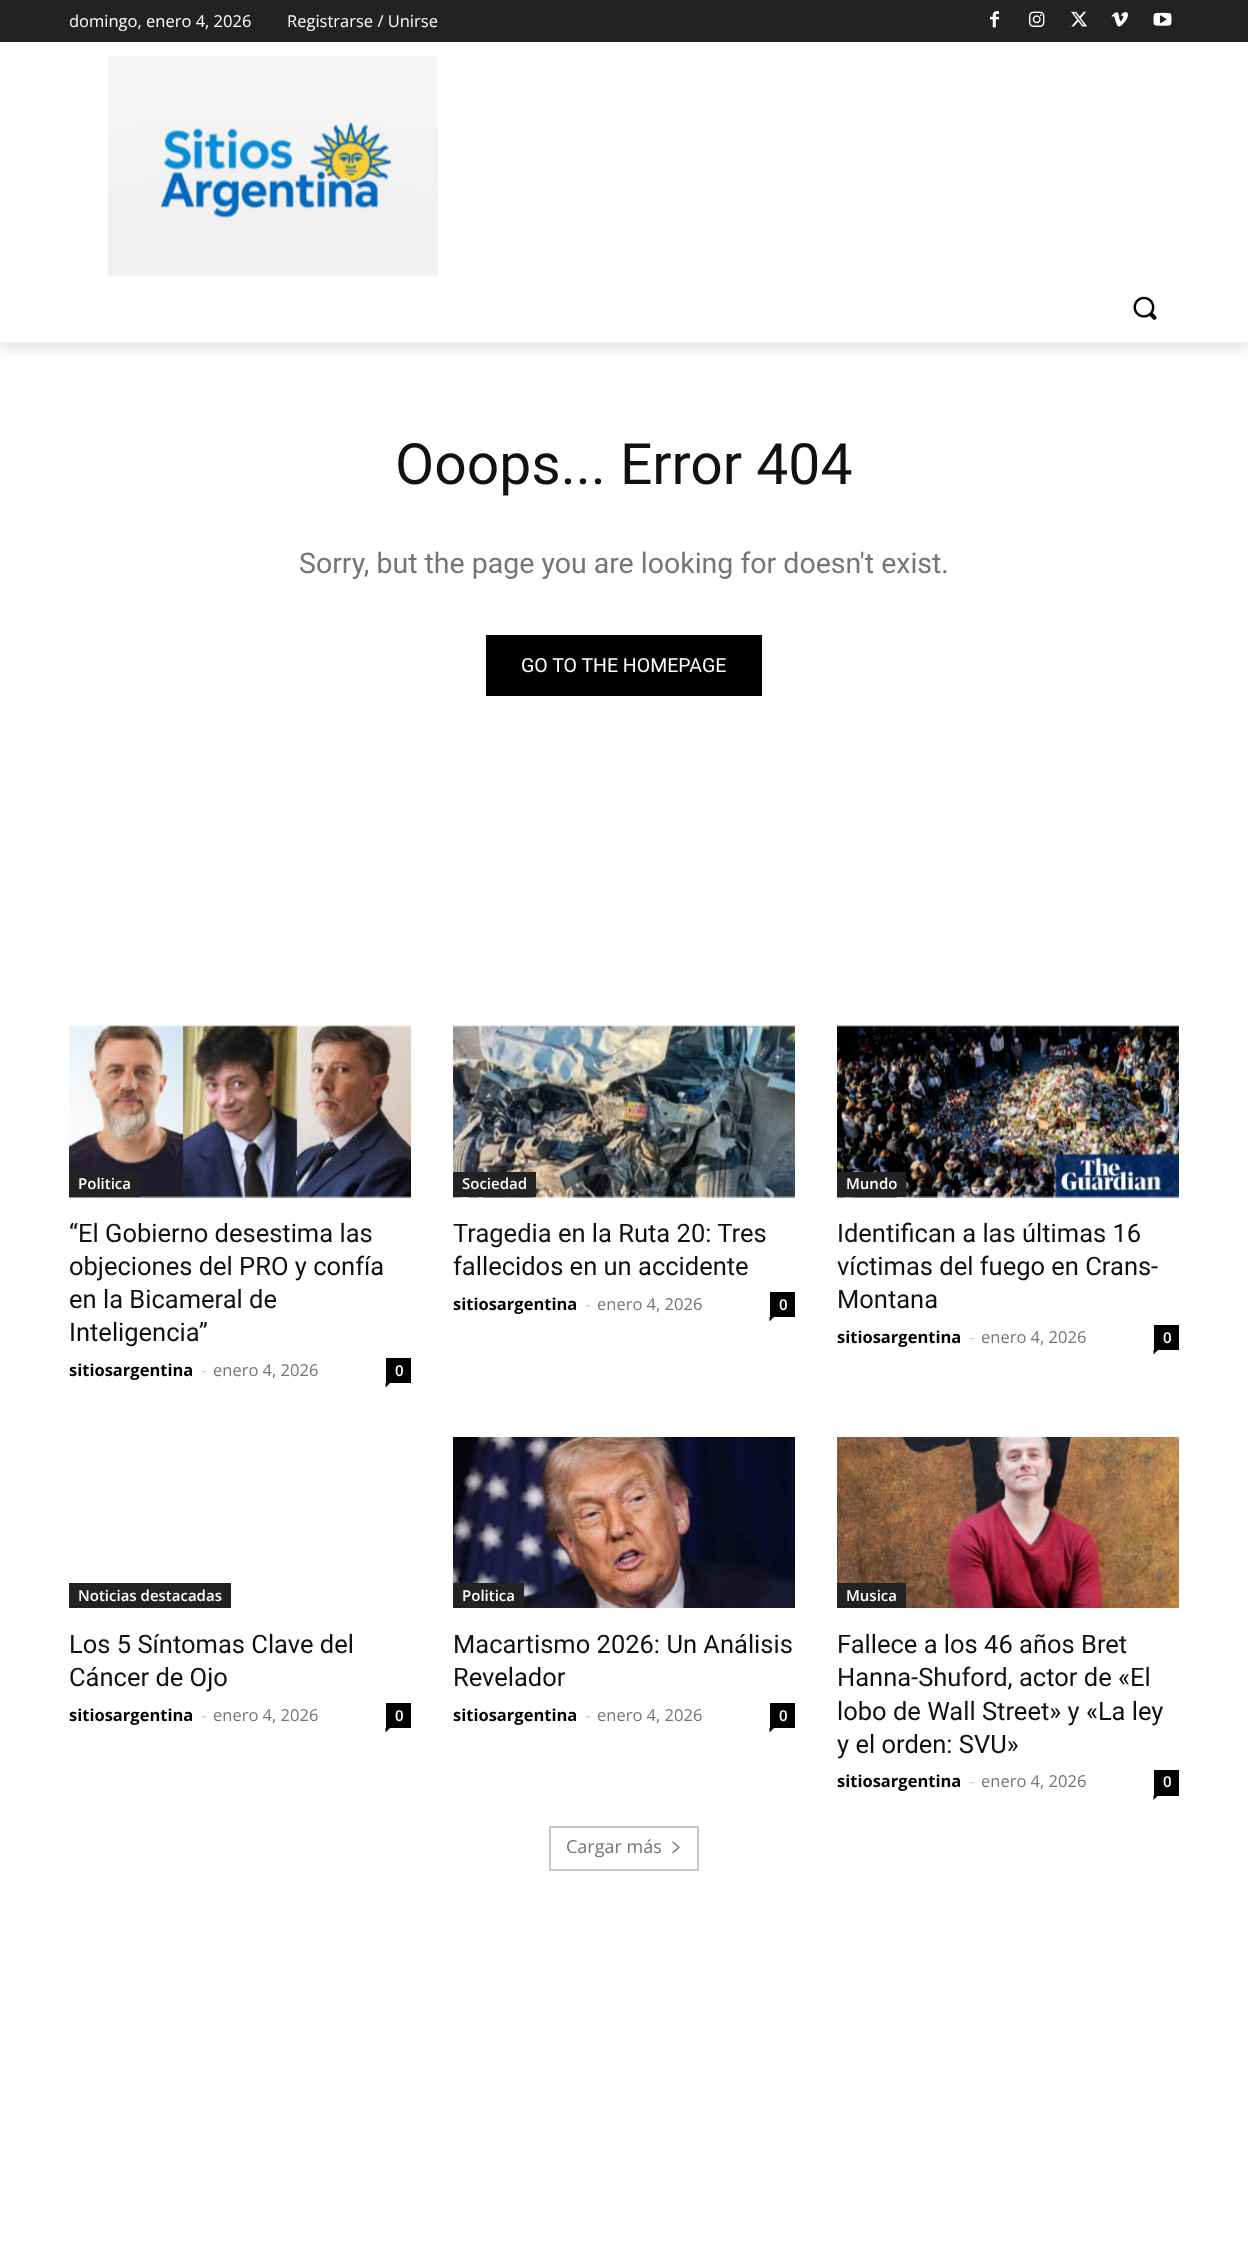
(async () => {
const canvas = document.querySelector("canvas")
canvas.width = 1248
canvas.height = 2258
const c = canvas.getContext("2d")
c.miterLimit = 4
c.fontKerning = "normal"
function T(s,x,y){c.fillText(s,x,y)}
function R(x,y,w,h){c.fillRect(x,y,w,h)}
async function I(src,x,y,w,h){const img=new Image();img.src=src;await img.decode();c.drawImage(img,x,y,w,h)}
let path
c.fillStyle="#fff"
R(0,0,1248,2258)
c.fillStyle="#222"
R(0,0,1248,42)
await I("1.png",990,11,9,17)
await I("2.png",1029,11,16,16)
await I("3.png",1071,11,16,16)
await I("4.png",1111,12,17,15)
await I("5.png",1153,12,19,14)
await I("6.png",108,55,330,222)
c.save()
c.beginPath()
c.rect(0,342,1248,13)
c.clip()
c.fillStyle="#00000014"
c.filter="blur(6px)"
c.beginPath()
c.rect(0,9,1248,342)
c.fill()
c.filter="none"
c.restore()
c.font="16.5px Open Sans"
c.fillStyle="#fff"
T("domingo, enero 4, 2026",69,27)
T("Registrarse / Unirse",287,27)
await I("7.png",1133,296,24,24)
c.font="57px Roboto"
c.fillStyle="#111"
T("Ooops... Error 404",395,484)
c.font="28.5px Roboto"
c.fillStyle="#757575"
T("Sorry, but the page you are looking for doesn't exist.",299,573)
c.fillStyle="#000"
R(486,635,276,61)
c.font="19.5px Roboto"
c.fillStyle="#fff"
T("GO TO THE HOMEPAGE",521,672)
await I("8.png",69,1025,342,173)
c.fillStyle="#222"
R(69,1172,71,25)
c.font="600 15px Open Sans"
c.fillStyle="#fff"
T("Politica",78,1189)
c.font="25.5px Roboto"
c.fillStyle="#111"
T("“El Gobierno desestima las",69,1242)
T("objeciones del PRO y confía",69,1275)
T("en la Bicameral de",69,1308)
T("Inteligencia”",69,1341)
c.font="bold 16.5px Open Sans"
c.fillStyle="#000"
T("sitiosargentina",69,1376)
c.font="16.5px Open Sans"
c.fillStyle="#ccc"
T("-",201,1376)
c.fillStyle="#757575"
T("enero 4, 2026",213,1376)
c.fillStyle="#000"
R(386,1358,25,25)
c.font="600 15px Open Sans"
c.fillStyle="#fff"
T("0",395,1376)
c.fillStyle="#000"
path = new Path2D("M385.5 1383h4.5l-4.5 4.5z")
c.fill(path)
await I("9.png",453,1025,342,173)
c.fillStyle="#222"
R(453,1172,83,25)
c.fillStyle="#fff"
T("Sociedad",462,1189)
c.font="25.5px Roboto"
c.fillStyle="#111"
T("Tragedia en la Ruta 20: Tres",453,1242)
T("fallecidos en un accidente",453,1275)
c.font="bold 16.5px Open Sans"
c.fillStyle="#000"
T("sitiosargentina",453,1310)
c.font="16.5px Open Sans"
c.fillStyle="#ccc"
T("-",585,1310)
c.fillStyle="#757575"
T("enero 4, 2026",597,1310)
c.fillStyle="#000"
R(770,1292,25,25)
c.font="600 15px Open Sans"
c.fillStyle="#fff"
T("0",779,1310)
c.fillStyle="#000"
path = new Path2D("M769.5 1317h4.5l-4.5 4.5z")
c.fill(path)
await I("10.png",837,1025,342,173)
c.fillStyle="#222"
R(837,1172,69,25)
c.fillStyle="#fff"
T("Mundo",846,1189)
c.font="25.5px Roboto"
c.fillStyle="#111"
T("Identifican a las últimas 16",837,1242)
T("víctimas del fuego en Crans-",837,1275)
T("Montana",837,1308)
c.font="bold 16.5px Open Sans"
c.fillStyle="#000"
T("sitiosargentina",837,1343)
c.font="16.5px Open Sans"
c.fillStyle="#ccc"
T("-",969,1343)
c.fillStyle="#757575"
T("enero 4, 2026",981,1343)
c.fillStyle="#000"
R(1154,1325,25,25)
c.font="600 15px Open Sans"
c.fillStyle="#fff"
T("0",1163,1343)
c.fillStyle="#000"
path = new Path2D("M1153.5 1350h4.5l-4.5 4.5z")
c.fill(path)
c.fillStyle="#222"
R(69,1583,162,25)
c.fillStyle="#fff"
T("Noticias destacadas",78,1601)
c.font="25.5px Roboto"
c.fillStyle="#111"
T("Los 5 Síntomas Clave del",69,1653)
T("Cáncer de Ojo",69,1686)
c.font="bold 16.5px Open Sans"
c.fillStyle="#000"
T("sitiosargentina",69,1721)
c.font="16.5px Open Sans"
c.fillStyle="#ccc"
T("-",201,1721)
c.fillStyle="#757575"
T("enero 4, 2026",213,1721)
c.fillStyle="#000"
R(386,1703,25,25)
c.font="600 15px Open Sans"
c.fillStyle="#fff"
T("0",395,1721)
c.fillStyle="#000"
path = new Path2D("M385.5 1728h4.5l-4.5 4.5z")
c.fill(path)
await I("11.png",453,1437,342,171)
c.fillStyle="#222"
R(453,1583,71,25)
c.fillStyle="#fff"
T("Politica",462,1601)
c.font="25.5px Roboto"
c.fillStyle="#111"
T("Macartismo 2026: Un Análisis",453,1653)
T("Revelador",453,1686)
c.font="bold 16.5px Open Sans"
c.fillStyle="#000"
T("sitiosargentina",453,1721)
c.font="16.5px Open Sans"
c.fillStyle="#ccc"
T("-",585,1721)
c.fillStyle="#757575"
T("enero 4, 2026",597,1721)
c.fillStyle="#000"
R(770,1703,25,25)
c.font="600 15px Open Sans"
c.fillStyle="#fff"
T("0",779,1721)
c.fillStyle="#000"
path = new Path2D("M769.5 1728h4.5l-4.5 4.5z")
c.fill(path)
await I("12.png",837,1437,342,171)
c.fillStyle="#222"
R(837,1583,69,25)
c.fillStyle="#fff"
T("Musica",846,1601)
c.font="25.5px Roboto"
c.fillStyle="#111"
T("Fallece a los 46 años Bret",837,1653)
T("Hanna-Shuford, actor de «El",837,1686)
T("lobo de Wall Street» y «La ley",837,1720)
T("y el orden: SVU»",837,1753)
c.font="bold 16.5px Open Sans"
c.fillStyle="#000"
T("sitiosargentina",837,1787)
c.font="16.5px Open Sans"
c.fillStyle="#ccc"
T("-",969,1787)
c.fillStyle="#757575"
T("enero 4, 2026",981,1787)
c.fillStyle="#000"
R(1154,1770,25,26)
c.font="600 15px Open Sans"
c.fillStyle="#fff"
T("0",1163,1787)
c.fillStyle="#000"
path = new Path2D("M1153.5 1795.5h4.5l-4.5 4.5z")
c.fill(path)
c.strokeStyle="#c9c9c9"
c.lineWidth=2
c.strokeRect(550,1827,148,43)
c.font="18px Open Sans"
c.fillStyle="#757575"
T("Cargar más",566,1853)
await I("13.png",672,1841,8,13)
})()
